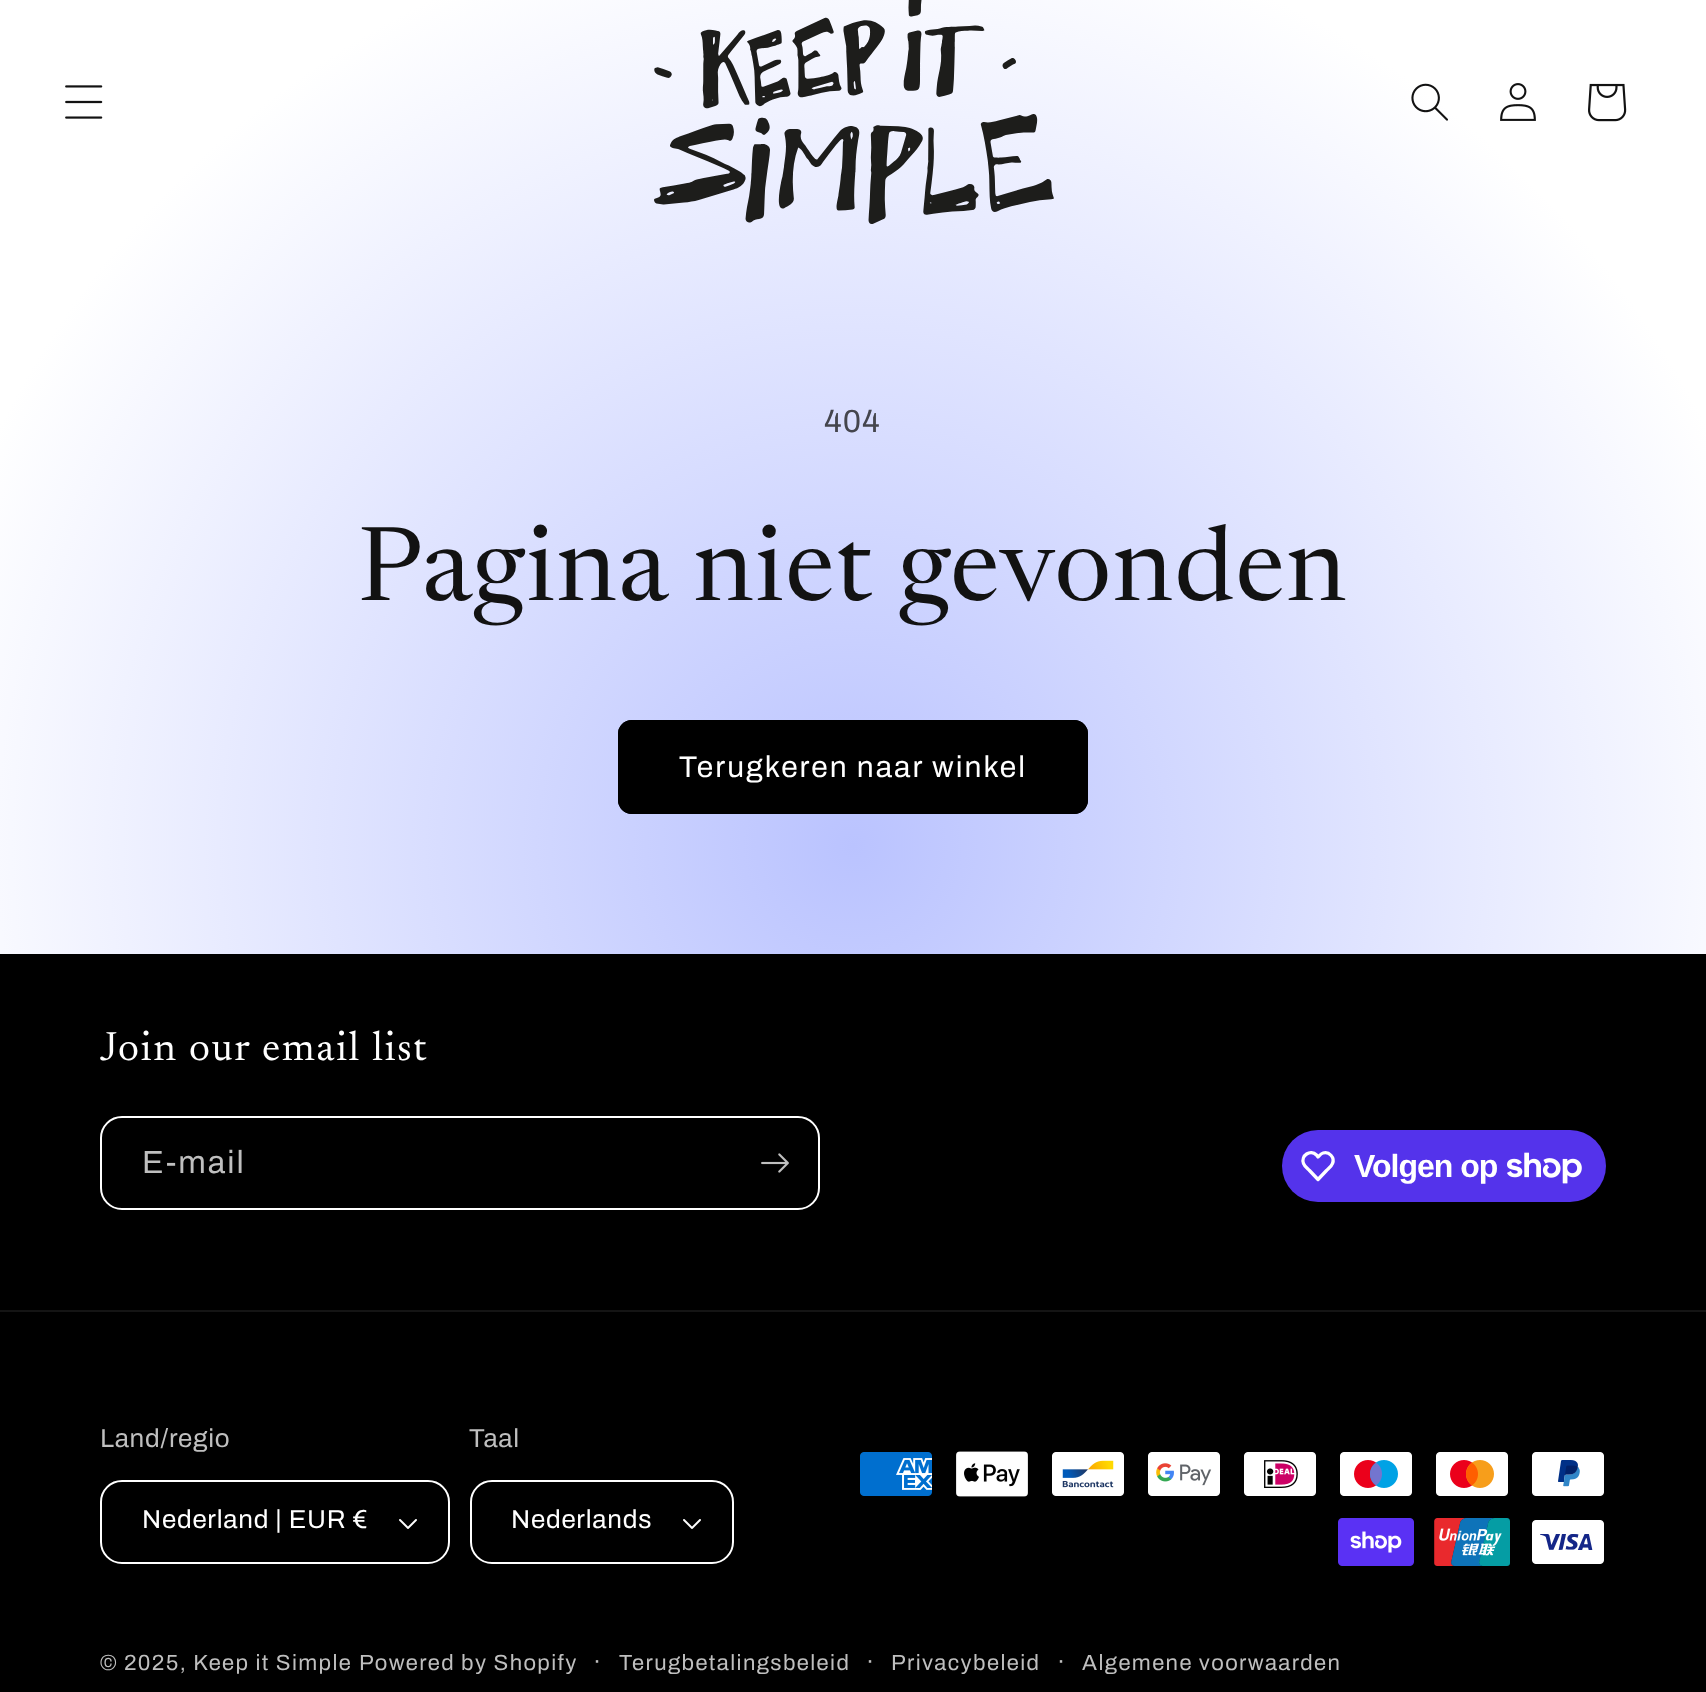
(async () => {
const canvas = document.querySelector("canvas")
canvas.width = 1706
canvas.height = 1692
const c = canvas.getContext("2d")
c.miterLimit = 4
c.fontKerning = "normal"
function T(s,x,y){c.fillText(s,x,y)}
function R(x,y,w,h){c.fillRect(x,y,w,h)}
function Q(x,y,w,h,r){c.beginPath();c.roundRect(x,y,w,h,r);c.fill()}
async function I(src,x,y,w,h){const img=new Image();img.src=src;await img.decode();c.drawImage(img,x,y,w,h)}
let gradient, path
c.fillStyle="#fff"
R(0,0,1706,1692)
gradient = c.createRadialGradient(853,853.07,0,853,853.07,1206)
gradient.addColorStop(0,"#bac3ff")
gradient.addColorStop(.79,"#fff")
gradient.addColorStop(.97,"#fff")
c.fillStyle = gradient
c.beginPath()
c.rect(0,0,1706,954)
c.save()
c.clip()
c.scale(1,1196 / 1206)
c.fillRect(0,0,1706,1707)
c.restore()
await I("1.png",65,85,38,34)
await I("2.png",654,0,400,224)
await I("3.png",1411,83,37,38)
await I("4.png",1500,83,36,38)
await I("5.png",1588,83,39,39)
c.letterSpacing="1px"
c.font="32px Archivo"
c.fillStyle="#44454d"
T("404",824,432)
c.letterSpacing="1.6px"
c.font="104px Newsreader"
c.fillStyle="#121212"
T("Pagina niet gevonden",358,600)
c.fillStyle="#000"
Q(618,720,470,94,14)
c.beginPath()
c.roundRect(619,721,468,92,13)
c.strokeStyle="#000"
c.lineWidth=2
c.stroke()
c.letterSpacing="2px"
c.font="30px Archivo"
c.fillStyle="#fff"
T("Terugkeren naar winkel",679,777)
c.fillStyle="#000"
R(0,954,1706,738)
c.letterSpacing="1.6px"
c.wordSpacing="0.5px"
c.font="41.5px 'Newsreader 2'"
c.fillStyle="#fff"
T("Join our email list",100,1060)
c.beginPath()
c.roundRect(101,1117,718,92,21)
c.strokeStyle="#fff"
c.stroke()
c.letterSpacing="2px"
c.wordSpacing="0px"
c.font="32px Archivo"
c.fillStyle="#bfbfbf"
T("E‑mail",142,1173)
await I("6.png",761,1153,28,20)
c.fillStyle="#5433eb"
Q(1282,1130,324,72,36)
path = new Path2D("M1316.5 1155l1.5 2c1.5-1.5 3-3.5 5-4c6-2 12 4.5 9.5 10.5c-1 3-4 5-6 7l-8.5 9l-8.5-9c-2-2-5-4-6-7c-3-8 7-14.5 13-8.5z")
c.lineWidth=3.3
c.lineJoin="round"
c.stroke(path)
c.letterSpacing="-1px"
c.font="bold 32px Liberation Sans"
c.fillStyle="#fff"
T("Volgen op",1354,1177)
await I("7.png",1507,1152,75,32)
c.fillStyle="#141414"
R(0,1310,1706,2)
c.letterSpacing="0.75px"
c.font="26px Archivo"
c.fillStyle="#bfbfbf"
T("Land/regio",100,1447)
await I("8.png",399,1519,18,10)
c.beginPath()
c.roundRect(101,1481,348,82,21)
c.lineWidth=2
c.lineJoin="miter"
c.stroke()
c.fillStyle="#fff"
T("Nederland | EUR €",142,1528)
c.fillStyle="#bfbfbf"
T("Taal",469,1447)
await I("8.png",683,1519,18,10)
c.beginPath()
c.roundRect(471,1481,262,82,21)
c.stroke()
c.fillStyle="#fff"
T("Nederlands",511,1528)
await I("9.png",860,1452,72,44)
await I("10.png",956,1451,72,46)
await I("11.png",1052,1452,72,44)
await I("12.png",1148,1452,72,44)
await I("13.png",1244,1452,72,44)
await I("14.png",1340,1452,72,44)
await I("15.png",1436,1452,72,44)
await I("16.png",1532,1452,72,44)
await I("17.png",1338,1518,76,48)
await I("18.png",1434,1518,76,48)
await I("19.png",1532,1520,72,44)
c.letterSpacing="1.4px"
c.font="22px Archivo"
c.fillStyle="#bfbfbf"
T("© 2025, Keep it Simple",100,1670)
T("Powered by Shopify",359,1670)
c.font="24px Archivo"
T("·",593,1670)
c.font="22px Archivo"
T("Terugbetalingsbeleid",619,1670)
c.font="24px Archivo"
T("·",866,1670)
c.font="22px Archivo"
T("Privacybeleid",891,1670)
c.font="24px Archivo"
T("·",1057,1670)
c.font="22px Archivo"
T("Algemene voorwaarden",1082,1670)
})()
